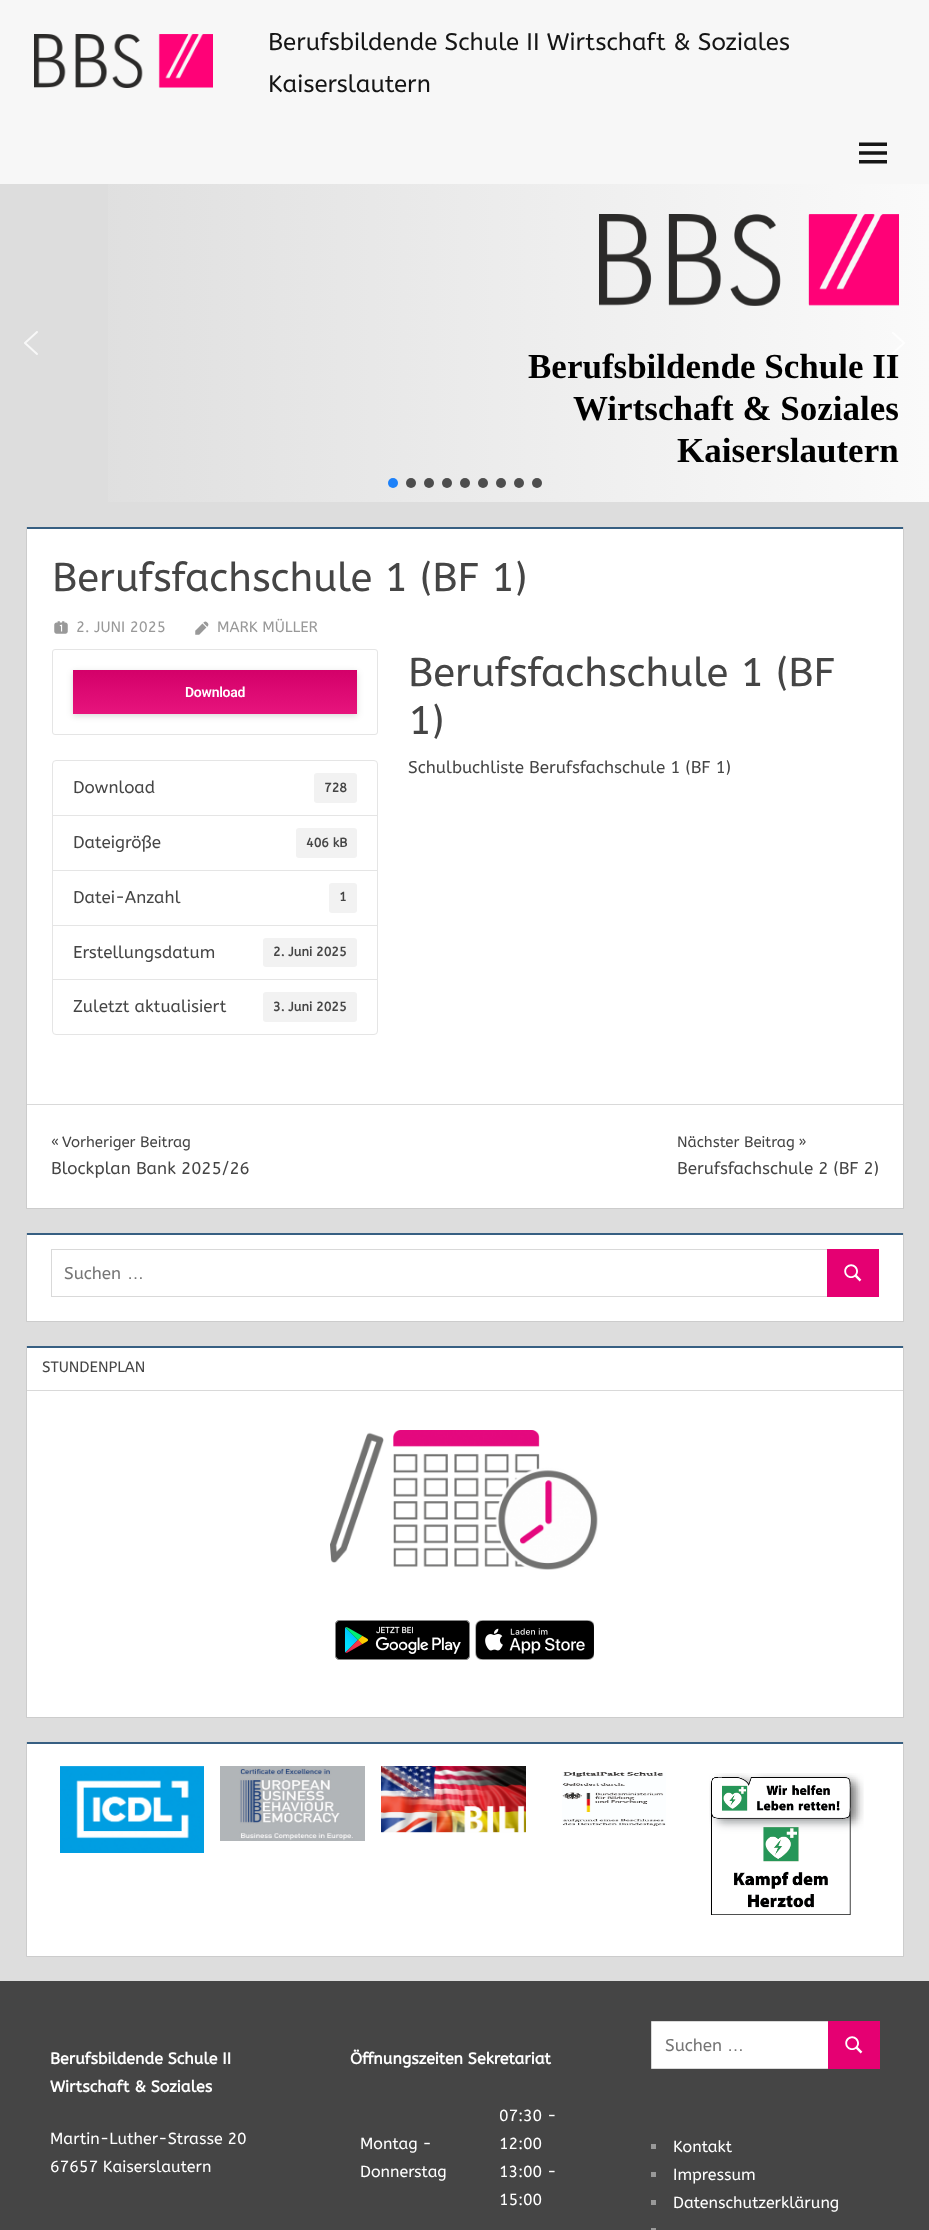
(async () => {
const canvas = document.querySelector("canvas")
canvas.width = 929
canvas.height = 2230
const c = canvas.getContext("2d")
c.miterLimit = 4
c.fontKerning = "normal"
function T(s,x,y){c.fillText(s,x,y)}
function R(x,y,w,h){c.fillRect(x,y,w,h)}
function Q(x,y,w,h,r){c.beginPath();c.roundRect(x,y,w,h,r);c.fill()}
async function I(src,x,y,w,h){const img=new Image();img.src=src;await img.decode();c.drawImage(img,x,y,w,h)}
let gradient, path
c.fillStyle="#ddd"
R(0,0,929,2230)
c.fillStyle="#f7f7f7"
R(0,0,929,184)
await I("1.png",34,34,179,54)
c.font="24px ABeeZee"
c.fillStyle="#151515"
T("Berufsbildende Schule II Wirtschaft & Soziales",268,50)
T("Kaiserslautern",268,92)
await I("2.png",859,142,28,22)
await I("3.png",24,331,14,24)
gradient = c.createLinearGradient(0,343,929,343)
gradient.addColorStop(0,"#dcdcdc")
gradient.addColorStop(1,"#fafafa")
c.fillStyle = gradient
R(108,184,821,318)
c.font="bold 35px Liberation Serif"
c.fillStyle="#000"
T("Berufsbildende Schule II",528,378)
await I("4.png",892,332,13,22)
await I("5.png",599,214,300,92)
T("Wirtschaft & Soziales",573,420)
T("Kaiserslautern",677,462)
c.fillStyle="#1d81f9"
c.beginPath()
c.arc(393,483,5,0,7)
c.fill()
c.fillStyle="#4d4d4d"
c.beginPath()
c.arc(411,483,5,0,7)
c.fill()
c.beginPath()
c.arc(429,483,5,0,7)
c.fill()
c.beginPath()
c.arc(447,483,5,0,7)
c.fill()
c.fillStyle="#4e4e4e"
c.beginPath()
c.arc(465,483,5,0,7)
c.fill()
c.beginPath()
c.arc(483,483,5,0,7)
c.fill()
c.beginPath()
c.arc(501,483,5,0,7)
c.fill()
c.beginPath()
c.arc(519,483,5,0,7)
c.fill()
c.beginPath()
c.arc(537,483,5,0,7)
c.fill()
c.fillStyle="#fff"
R(26,527,878,682)
c.fillStyle="#375f82"
R(27,527,876,2)
c.fillStyle="#ccc"
path = new Path2D("M904 527v682l-1-1v-681z")
c.fill(path)
c.fillStyle="#00000033"
path = new Path2D("M904 1209h-878l1-1h876z")
c.fill(path)
path = new Path2D("M26 1209v-682h1v681z")
c.fill(path)
c.font="40px ABeeZee"
c.fillStyle="#454545"
T("Berufsfachschule 1 (BF 1)",52,591)
await I("6.png",54,621,14,13)
c.font="15px ABeeZee"
c.fillStyle="#999"
T("2. JUNI 2025",76,632)
await I("7.png",195,621,14,14)
T("MARK MÜLLER",217,632)
c.beginPath()
c.roundRect(52.5,649.5,325,85,2.5)
c.strokeStyle="#e5e5e5"
c.stroke()
c.fillStyle="#00000026"
c.filter="blur(3px)"
c.beginPath()
c.rect(73,672,284,44)
c.fill()
c.filter="none"
gradient = c.createLinearGradient(215,670,215,714)
gradient.addColorStop(0,"#d30069")
gradient.addColorStop(1,"#e7147d")
c.fillStyle = gradient
R(73,670,284,44)
c.letterSpacing="-0.25px"
c.font="600 14px Roboto"
c.fillStyle="#fff"
T("Download",185,697)
c.beginPath()
c.roundRect(52.5,760.5,325,55,[3.5,3.5,0,0])
c.stroke()
c.letterSpacing="0px"
c.font="17px ABeeZee"
c.fillStyle="#454545"
T("Download",73,793)
c.fillStyle="#f2f2f2"
Q(314,773,43,30,3)
c.font="bold 12.75px ABeeZee"
c.fillStyle="#454545"
T("728",324,792)
c.strokeRect(52.5,815.5,325,55)
c.font="17px ABeeZee"
T("Dateigröße",73,848)
c.fillStyle="#f2f2f2"
Q(296,828,61,30,3)
c.font="bold 12.75px ABeeZee"
c.fillStyle="#454545"
T("406 kB",306,847)
c.strokeRect(52.5,870.5,325,55)
c.font="17px ABeeZee"
T("Datei-Anzahl",73,903)
c.fillStyle="#f2f2f2"
Q(329,883,28,30,3)
c.font="bold 12.75px ABeeZee"
c.fillStyle="#454545"
T("1",339,901)
c.strokeRect(52.5,925.5,325,54)
c.font="17px ABeeZee"
T("Erstellungsdatum",73,958)
c.fillStyle="#f2f2f2"
Q(263,938,94,29,3)
c.font="bold 12.75px ABeeZee"
c.fillStyle="#454545"
T("2. Juni 2025",273,956)
c.fillStyle="#fff"
c.beginPath()
c.roundRect(52.5,979.5,325,55,[0,0,3.5,3.5])
c.fill()
c.stroke()
c.font="17px ABeeZee"
c.fillStyle="#454545"
T("Zuletzt aktualisiert",73,1012)
c.fillStyle="#f2f2f2"
Q(263,992,94,30,3)
c.font="bold 12.75px ABeeZee"
c.fillStyle="#454545"
T("3. Juni 2025",273,1011)
c.font="40px ABeeZee"
T("Berufsfachschule 1 (BF",408,686)
T("1)",408,734)
c.font="17px ABeeZee"
T("Schulbuchliste Berufsfachschule 1 (BF 1)",408,773)
c.fillStyle="#d9d9d9"
R(27,1104,876,1)
c.font="15px ABeeZee"
c.fillStyle="#454545"
T("«",51,1147)
T("Vorheriger Beitrag",62,1147)
c.font="17px ABeeZee"
T("Blockplan Bank 2025/26",51,1174)
c.font="15px ABeeZee"
T("Nächster Beitrag",677,1147)
T("»",798,1147)
c.font="17px ABeeZee"
T("Berufsfachschule 2 (BF 2)",677,1174)
c.fillStyle="#fff"
R(26,1233,878,89)
c.fillStyle="#375f82"
R(27,1233,876,2)
c.fillStyle="#ccc"
path = new Path2D("M904 1233v89l-1-1v-88z")
c.fill(path)
c.fillStyle="#00000033"
path = new Path2D("M904 1322h-878l1-1h876z")
c.fill(path)
path = new Path2D("M26 1322v-89h1v88z")
c.fill(path)
c.strokeStyle="#d9d9d9"
c.strokeRect(51.5,1249.5,776,47)
c.fillStyle="#757575"
T("Suchen",64,1279)
c.font="17px Liberation Sans"
T("…",127,1279)
c.fillStyle="#e50072"
R(827,1249,52,48)
await I("8.png",844,1264,18,18)
c.fillStyle="#fff"
R(26,1346,878,372)
c.fillStyle="#375f82"
R(27,1346,876,2)
c.fillStyle="#ccc"
path = new Path2D("M904 1346v372l-1-1v-371z")
c.fill(path)
c.fillStyle="#00000033"
path = new Path2D("M904 1718h-878l1-1h876z")
c.fill(path)
path = new Path2D("M26 1718v-372h1v371z")
c.fill(path)
c.fillStyle="#d9d9d9"
R(27,1390,876,1)
c.font="15px ABeeZee"
c.fillStyle="#454545"
T("STUNDENPLAN",42,1372)
await I("9.png",330,1430,268,140)
await I("10.png",335,1620,135,40)
await I("11.png",475,1620,119,40)
c.fillStyle="#fff"
R(26,1742,878,215)
c.fillStyle="#375f82"
R(27,1742,876,2)
c.fillStyle="#ccc"
path = new Path2D("M904 1742v215l-1-1v-214z")
c.fill(path)
c.fillStyle="#00000033"
path = new Path2D("M904 1957h-878l1-1h876z")
c.fill(path)
path = new Path2D("M26 1957v-215h1v214z")
c.fill(path)
await I("12.png",60,1766,144,87)
await I("13.png",220,1766,145,75)
await I("14.png",381,1766,145,67)
await I("15.png",562,1772,104,54)
await I("16.png",709,1773,155,142)
c.fillStyle="#454545"
R(0,1981,929,249)
c.font="bold 16px ABeeZee"
c.fillStyle="#fff"
T("Berufsbildende Schule II",50,2064)
T("Wirtschaft & Soziales",50,2092)
c.font="16px ABeeZee"
T("Martin-Luther-Strasse 20",50,2144)
T("67657 Kaiserslautern",50,2172)
c.font="bold 16px ABeeZee"
T("Öffnungszeiten Sekretariat",350,2064)
c.font="16px ABeeZee"
T("Montag -",360,2149)
T("Donnerstag",360,2177)
T("07:30 -",499,2121)
T("12:00",499,2149)
T("13:00 -",499,2177)
T("15:00",499,2205)
c.beginPath()
c.rect(651.5,2021.5,177,47)
c.fill()
c.stroke()
c.font="17px ABeeZee"
c.fillStyle="#757575"
T("Suchen",665,2051)
c.font="17px Liberation Sans"
T("…",727,2051)
c.fillStyle="#e50072"
R(828,2021,52,48)
await I("17.png",845,2036,18,18)
c.fillStyle="#999"
R(651,2144,5,5)
c.font="16px ABeeZee"
c.fillStyle="#fff"
T("Kontakt",673,2152)
c.fillStyle="#999"
R(651,2172,5,5)
c.fillStyle="#fff"
T("Impressum",673,2180)
c.fillStyle="#999"
R(651,2200,5,5)
c.fillStyle="#fff"
T("Datenschutzerklärung",673,2208)
c.fillStyle="#999"
R(651,2228,5,2)
})()
